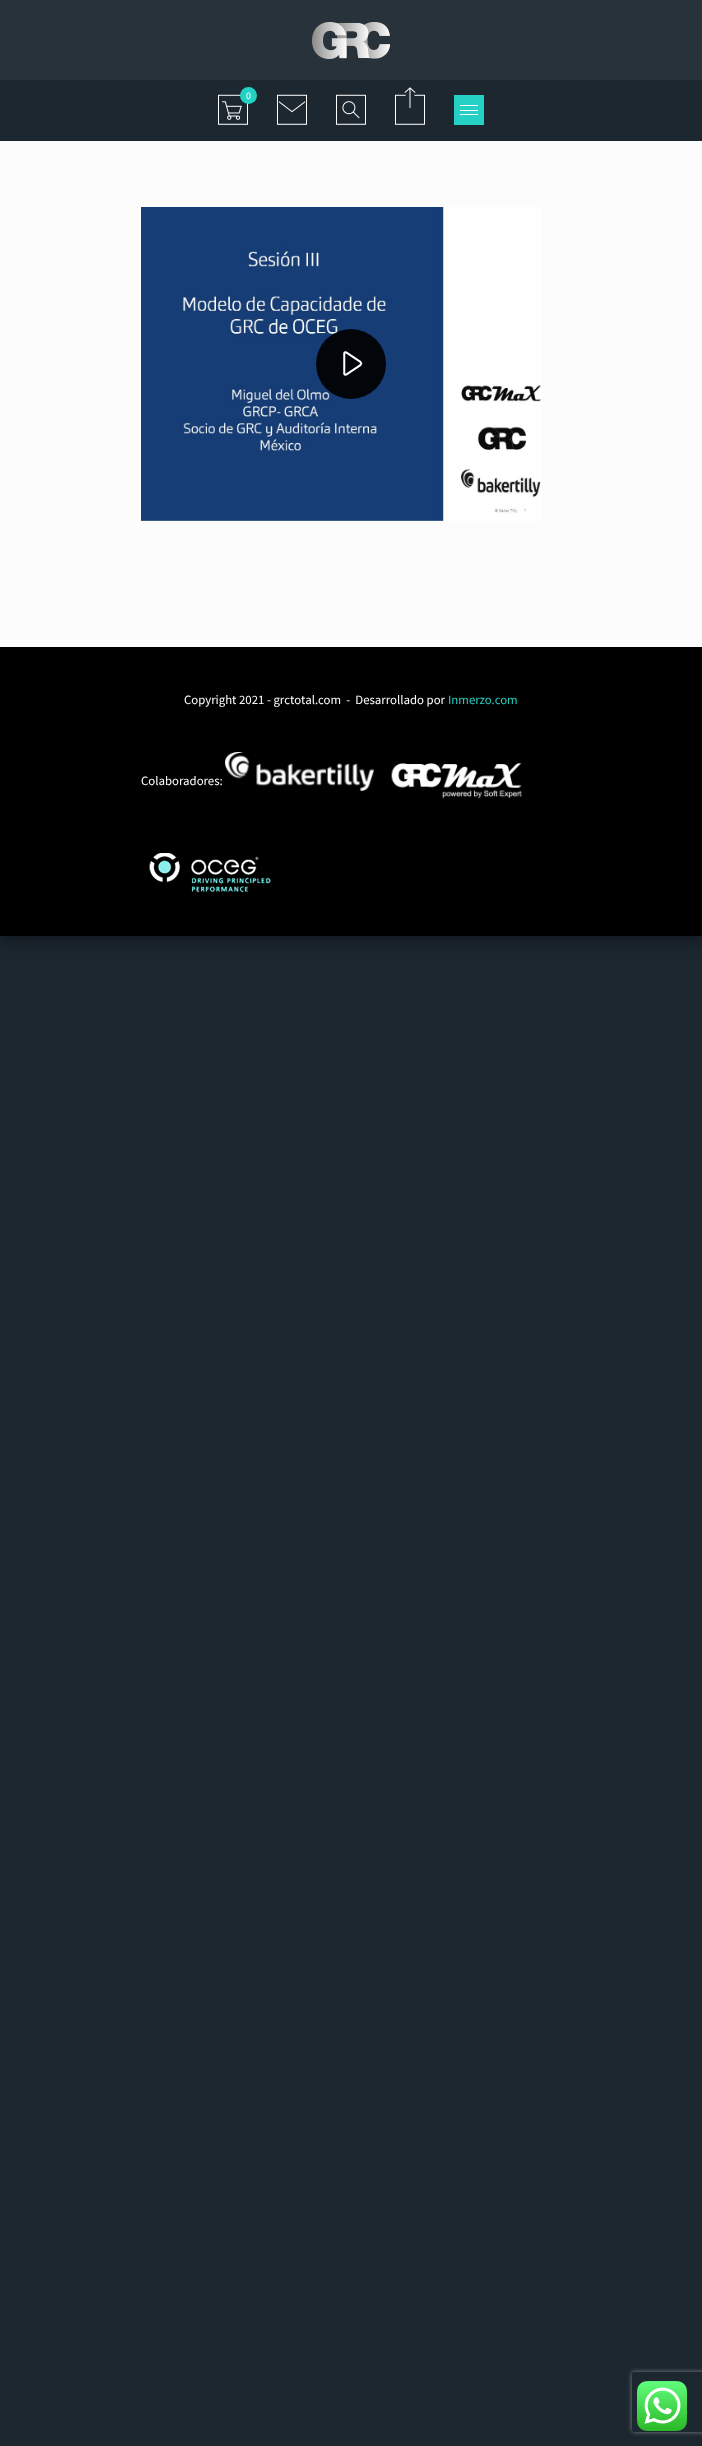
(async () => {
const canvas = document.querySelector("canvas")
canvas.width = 702
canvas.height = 2446
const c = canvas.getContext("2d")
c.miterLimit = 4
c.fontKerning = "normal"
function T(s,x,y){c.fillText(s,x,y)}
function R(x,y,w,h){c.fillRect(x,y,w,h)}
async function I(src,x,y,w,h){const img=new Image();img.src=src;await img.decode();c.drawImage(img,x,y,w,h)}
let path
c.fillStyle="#1c2730"
R(0,0,702,2446)
c.fillStyle="#00000080"
c.filter="blur(10px)"
c.beginPath()
c.rect(-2,-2,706,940)
c.fill()
c.filter="none"
c.fillStyle="#fcfcfc"
R(0,141,702,506)
c.fillStyle="#1c2730"
R(0,80,702,61)
c.fillStyle="#27323a"
R(0,0,702,80)
await I("1.png",312,22,78,37)
await I("2.png",218,94,30,31)
c.fillStyle="#24d1c4"
c.beginPath()
c.arc(248.5,95.5,8.5,0,7)
c.fill()
c.font="10px Source Sans Pro"
c.fillStyle="#fff"
T("0",246,99)
await I("3.png",277,94,30,31)
await I("4.png",336,94,30,31)
await I("5.png",395,87,30,38)
c.fillStyle="#24d1c4"
R(454,95,30,30)
c.fillStyle="#fff"
R(460,105,18,1)
R(460,114,18,1)
R(460,110,18,1)
await I("6.png",141,207,400,314)
c.fillStyle="#000000e6"
c.beginPath()
c.arc(351,364,35,0,7)
c.fill()
await I("7.png",343,351,20,25)
c.fillStyle="#000"
R(0,647,702,289)
c.font="12.75px Source Sans Pro"
c.fillStyle="#fff"
T("Copyright 2021 - grctotal.com  -  Desarrollado por",184,704)
c.fillStyle="#24d1c4"
T("Inmerzo.com",448,704)
c.fillStyle="#fff"
T("Colaboradores:",141,785)
await I("8.png",225,752,149,39)
await I("9.png",391,763,132,36)
await I("10.png",149,853,122,40)
c.save()
path = new Path2D("M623 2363h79v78h-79zm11 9h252c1 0 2 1 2 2v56c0 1-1 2-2 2h-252c-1 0-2-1-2-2v-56c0-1 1-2 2-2z")
c.clip(path,"evenodd")
c.fillStyle="#808080"
c.filter="blur(2.5px)"
c.beginPath()
c.roundRect(632,2372,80,60,2)
c.fill()
c.filter="none"
c.restore()
await I("11.png",637,2381,50,50)
})()
